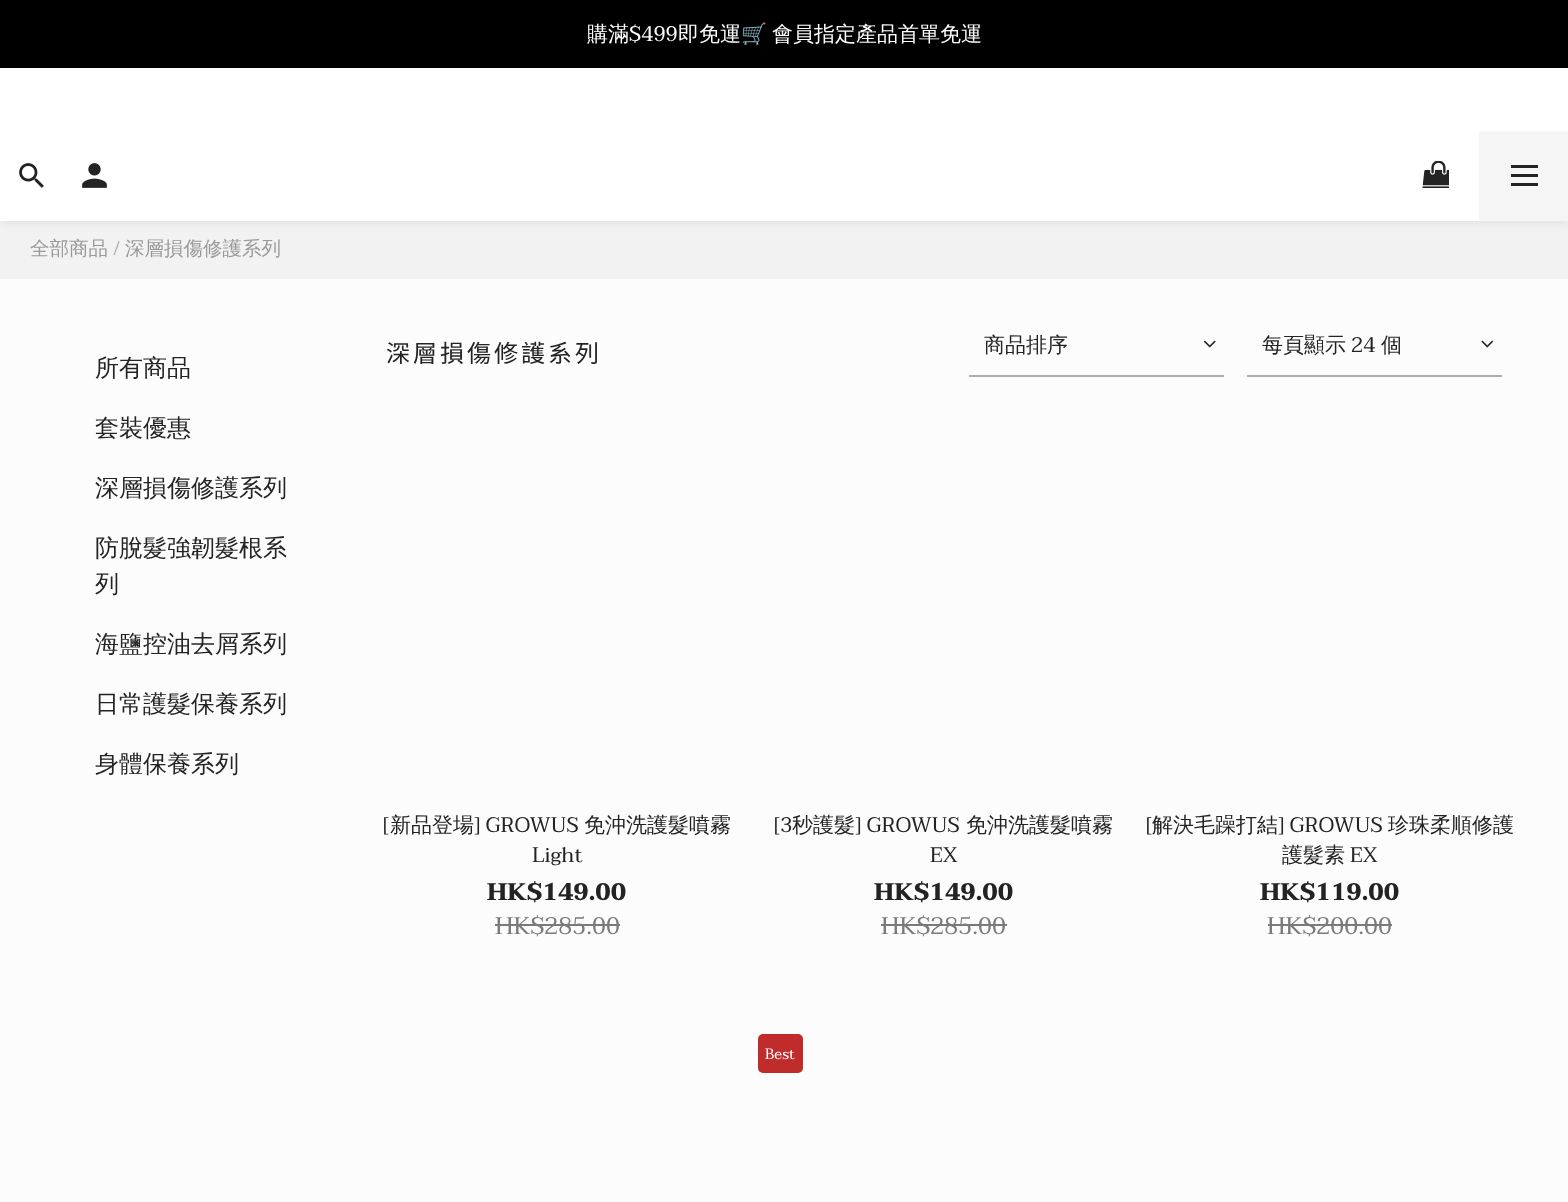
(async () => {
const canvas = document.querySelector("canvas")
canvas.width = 1568
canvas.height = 1202
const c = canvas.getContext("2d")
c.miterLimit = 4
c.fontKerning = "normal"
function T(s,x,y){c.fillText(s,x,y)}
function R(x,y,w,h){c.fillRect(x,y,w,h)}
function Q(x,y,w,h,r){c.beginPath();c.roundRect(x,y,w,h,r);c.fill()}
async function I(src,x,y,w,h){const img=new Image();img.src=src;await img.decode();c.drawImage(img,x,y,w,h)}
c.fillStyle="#fcfcfc"
R(0,0,1568,1202)
c.fillStyle="#000"
R(0,0,1568,68)
c.font="500 21px WenQuanYi Zen Hei"
c.fillStyle="#fff"
T("購滿",587,41)
c.font="21px Taviraj"
T("$499",629,41)
c.font="500 21px WenQuanYi Zen Hei"
T("即免運",678,41)
c.font="21px Noto Color Emoji"
T("🛒",741,41)
c.font="500 21px WenQuanYi Zen Hei"
T("會員指定產品首單免運",772,41)
c.fillStyle="#f2f2f2"
R(0,221,1568,58)
c.fillStyle="#0000000f"
c.filter="blur(4.5px)"
c.beginPath()
c.rect(0,71,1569,153)
c.fill()
c.filter="none"
c.fillStyle="#fff"
R(0,68,1568,153)
await I("1.png",19,163,25,25)
await I("2.png",82,163,25,25)
await I("3.png",1422,161,27,27)
c.fillStyle="#f5f5f5"
R(1479,131,89,90)
c.fillStyle="#232323"
R(1511,174,27,3)
R(1511,165,27,3)
R(1511,183,27,3)
c.font="500 19.5px WenQuanYi Zen Hei"
c.fillStyle="#999"
T("全部商品",30,255)
c.font="19.5px Taviraj"
T("/",113,255)
c.font="500 19.5px WenQuanYi Zen Hei"
T("深層損傷修護系列",125,255)
c.font="500 24px WenQuanYi Zen Hei"
c.fillStyle="#232323"
T("所有商品",95,376)
T("套裝優惠",95,436)
T("深層損傷修護系列",95,496)
T("防脫髮強韌髮根系",95,556)
T("列",95,592)
T("海鹽控油去屑系列",95,652)
T("日常護髮保養系列",95,712)
T("身體保養系列",95,772)
c.letterSpacing="3px"
c.font="24px Noto Sans TC"
T("深層損傷修護系列",386,362)
c.letterSpacing="0px"
c.font="500 21px WenQuanYi Zen Hei"
T("商品排序",984,352)
c.fillStyle="#adadad"
R(969,375,255,2)
await I("4.png",1203,340,13,8)
c.fillStyle="#232323"
T("每頁顯示",1262,352)
c.font="21px Taviraj"
T("24",1351,352)
c.font="500 21px WenQuanYi Zen Hei"
T("個",1381,352)
c.fillStyle="#adadad"
R(1247,375,255,2)
await I("5.png",1481,340,13,8)
c.font="21px Taviraj"
c.fillStyle="#232323"
T("[",383,832)
c.font="500 21px WenQuanYi Zen Hei"
T("新品登場",390,832)
c.font="21px Taviraj"
T("] GROWUS",474,832)
c.font="500 21px WenQuanYi Zen Hei"
T("免沖洗護髮噴霧",584,832)
c.font="21px Taviraj"
T("Light",532,862)
c.font="bold 24px Taviraj"
T("HK$149.00",487,900)
c.font="24px Taviraj"
c.fillStyle="#7a7a7a"
T("HK$285.00",495,934)
R(495,924,125,2)
c.font="21px Taviraj"
c.fillStyle="#232323"
T("[3",774,832)
c.font="500 21px WenQuanYi Zen Hei"
T("秒護髮",792,832)
c.font="21px Taviraj"
T("] GROWUS",855,832)
c.font="500 21px WenQuanYi Zen Hei"
T("免沖洗護髮噴霧",966,832)
c.font="21px Taviraj"
T("EX",930,862)
c.font="bold 24px Taviraj"
T("HK$149.00",874,900)
c.font="24px Taviraj"
c.fillStyle="#7a7a7a"
T("HK$285.00",881,934)
R(881,924,126,2)
c.font="21px Taviraj"
c.fillStyle="#232323"
T("[",1146,832)
c.font="500 21px WenQuanYi Zen Hei"
T("解決毛躁打結",1152,832)
c.font="21px Taviraj"
T("] GROWUS",1278,832)
c.font="500 21px WenQuanYi Zen Hei"
T("珍珠柔順修護",1388,832)
T("護髮素",1282,862)
c.font="21px Taviraj"
T("EX",1350,862)
c.font="bold 24px Taviraj"
T("HK$119.00",1260,900)
c.font="24px Taviraj"
c.fillStyle="#7a7a7a"
T("HK$200.00",1267,934)
R(1268,924,124,2)
c.fillStyle="#c02b2b"
Q(758,1034,45,39,5)
c.font="15px Taviraj"
c.fillStyle="#fff"
T("Best",765,1059)
})()
